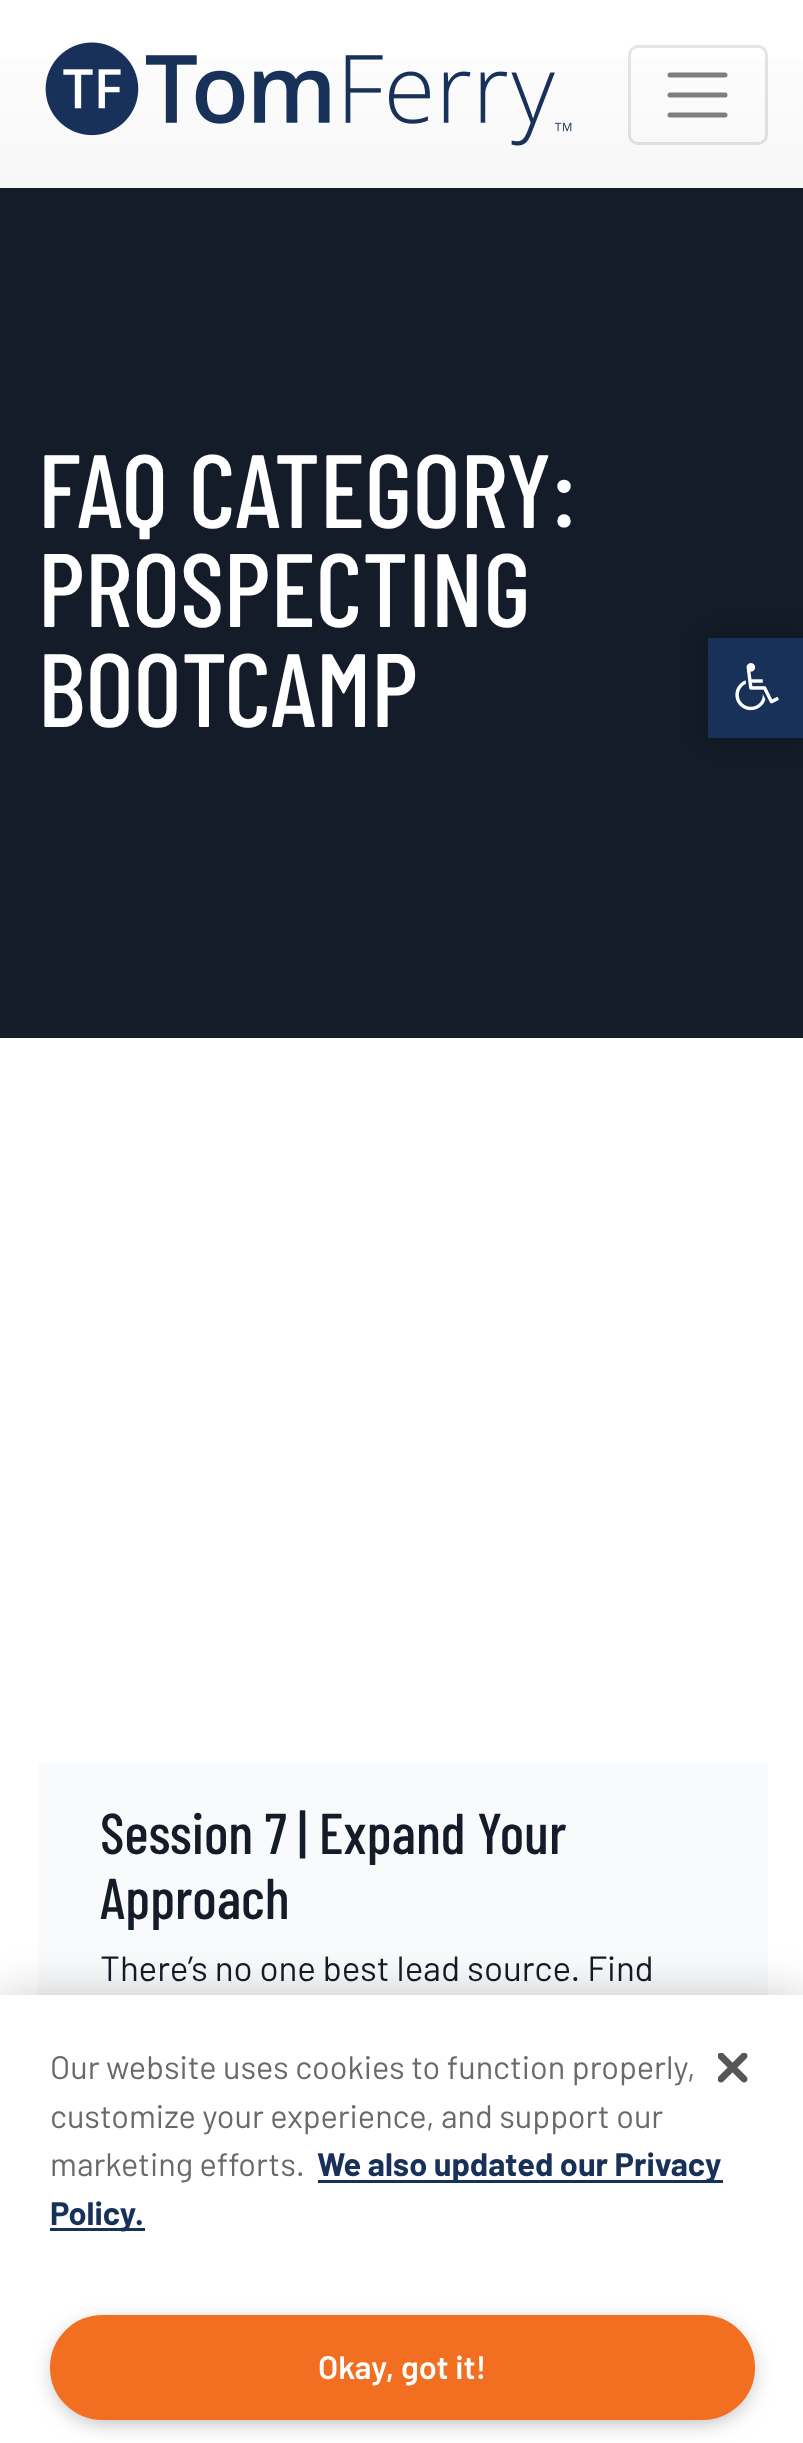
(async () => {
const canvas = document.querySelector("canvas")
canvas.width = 803
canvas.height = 2443
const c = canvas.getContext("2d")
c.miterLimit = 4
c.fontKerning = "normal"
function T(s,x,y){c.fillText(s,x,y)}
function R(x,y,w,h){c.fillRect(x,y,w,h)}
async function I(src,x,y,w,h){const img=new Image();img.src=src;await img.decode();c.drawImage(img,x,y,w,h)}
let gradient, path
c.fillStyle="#fff"
R(0,0,803,2443)
gradient = c.createLinearGradient(403,188,403,0)
gradient.addColorStop(0,"#f7f7f7")
gradient.addColorStop(1,"#fff")
c.fillStyle = gradient
R(0,59,803,129)
await I("1.png",45,42,527,104)
c.beginPath()
c.roundRect(629.5,46.5,137,97,8.5)
c.strokeStyle="#0000001a"
c.lineWidth=3
c.stroke()
path = new Path2D("M670 75h55m-55 20h55m-55 20h55")
c.strokeStyle="#7e7e7e"
c.lineWidth=5
c.lineCap="round"
c.stroke(path)
c.fillStyle="#141c29"
R(0,188,803,850)
c.font="500 104px Barlow Condensed"
c.fillStyle="#fff"
T("FAQ CATEGORY:",38,528)
T("PROSPECTING",38,627)
T("BOOTCAMP",38,727)
c.fillStyle="#f9fafc"
R(38,1763,730,232)
c.font="500 57.5px Barlow Condensed"
c.fillStyle="#141c29"
T("Session 7 | Expand Your",100,1854)
T("Approach",100,1919)
c.font="35px Barlow"
T("There’s no one best lead source. Find",100,1981)
c.fillStyle="#0000004d"
c.filter="blur(12.5px)"
c.beginPath()
c.rect(708,638,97,100)
c.fill()
c.filter="none"
c.fillStyle="#173159"
R(708,638,95,100)
await I("2.png",735,663,44,48)
c.fillStyle="#00000033"
c.filter="blur(22.5px)"
c.beginPath()
c.rect(0,1995,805,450)
c.fill()
c.filter="none"
c.fillStyle="#fff"
R(0,1995,803,448)
c.font="32.5px Barlow"
c.fillStyle="#696969"
T("Our website uses cookies to function properly,",50,2079)
T("customize your experience, and support our",50,2128)
T("marketing efforts.",50,2176)
c.fillStyle="#173159"
R(318,2180,405,3)
c.font="bold 32.5px Barlow"
T("We also updated our Privacy",317,2176)
R(50,2228,95,3)
T("Policy.",50,2225)
c.fillStyle="#999"
c.filter="blur(12.5px)"
c.beginPath()
c.roundRect(58,2328,690,90,45)
c.fill()
c.filter="none"
c.fillStyle="#f26f21"
c.beginPath()
c.roundRect(51.5,2316.5,702,102,51)
c.fill()
c.strokeStyle="#f26f21"
c.lineWidth=3
c.stroke()
c.font="600 32.5px Barlow"
c.fillStyle="#fff"
T("Okay, got it!",318,2379)
await I("3.png",718,2053,30,30)
})()
